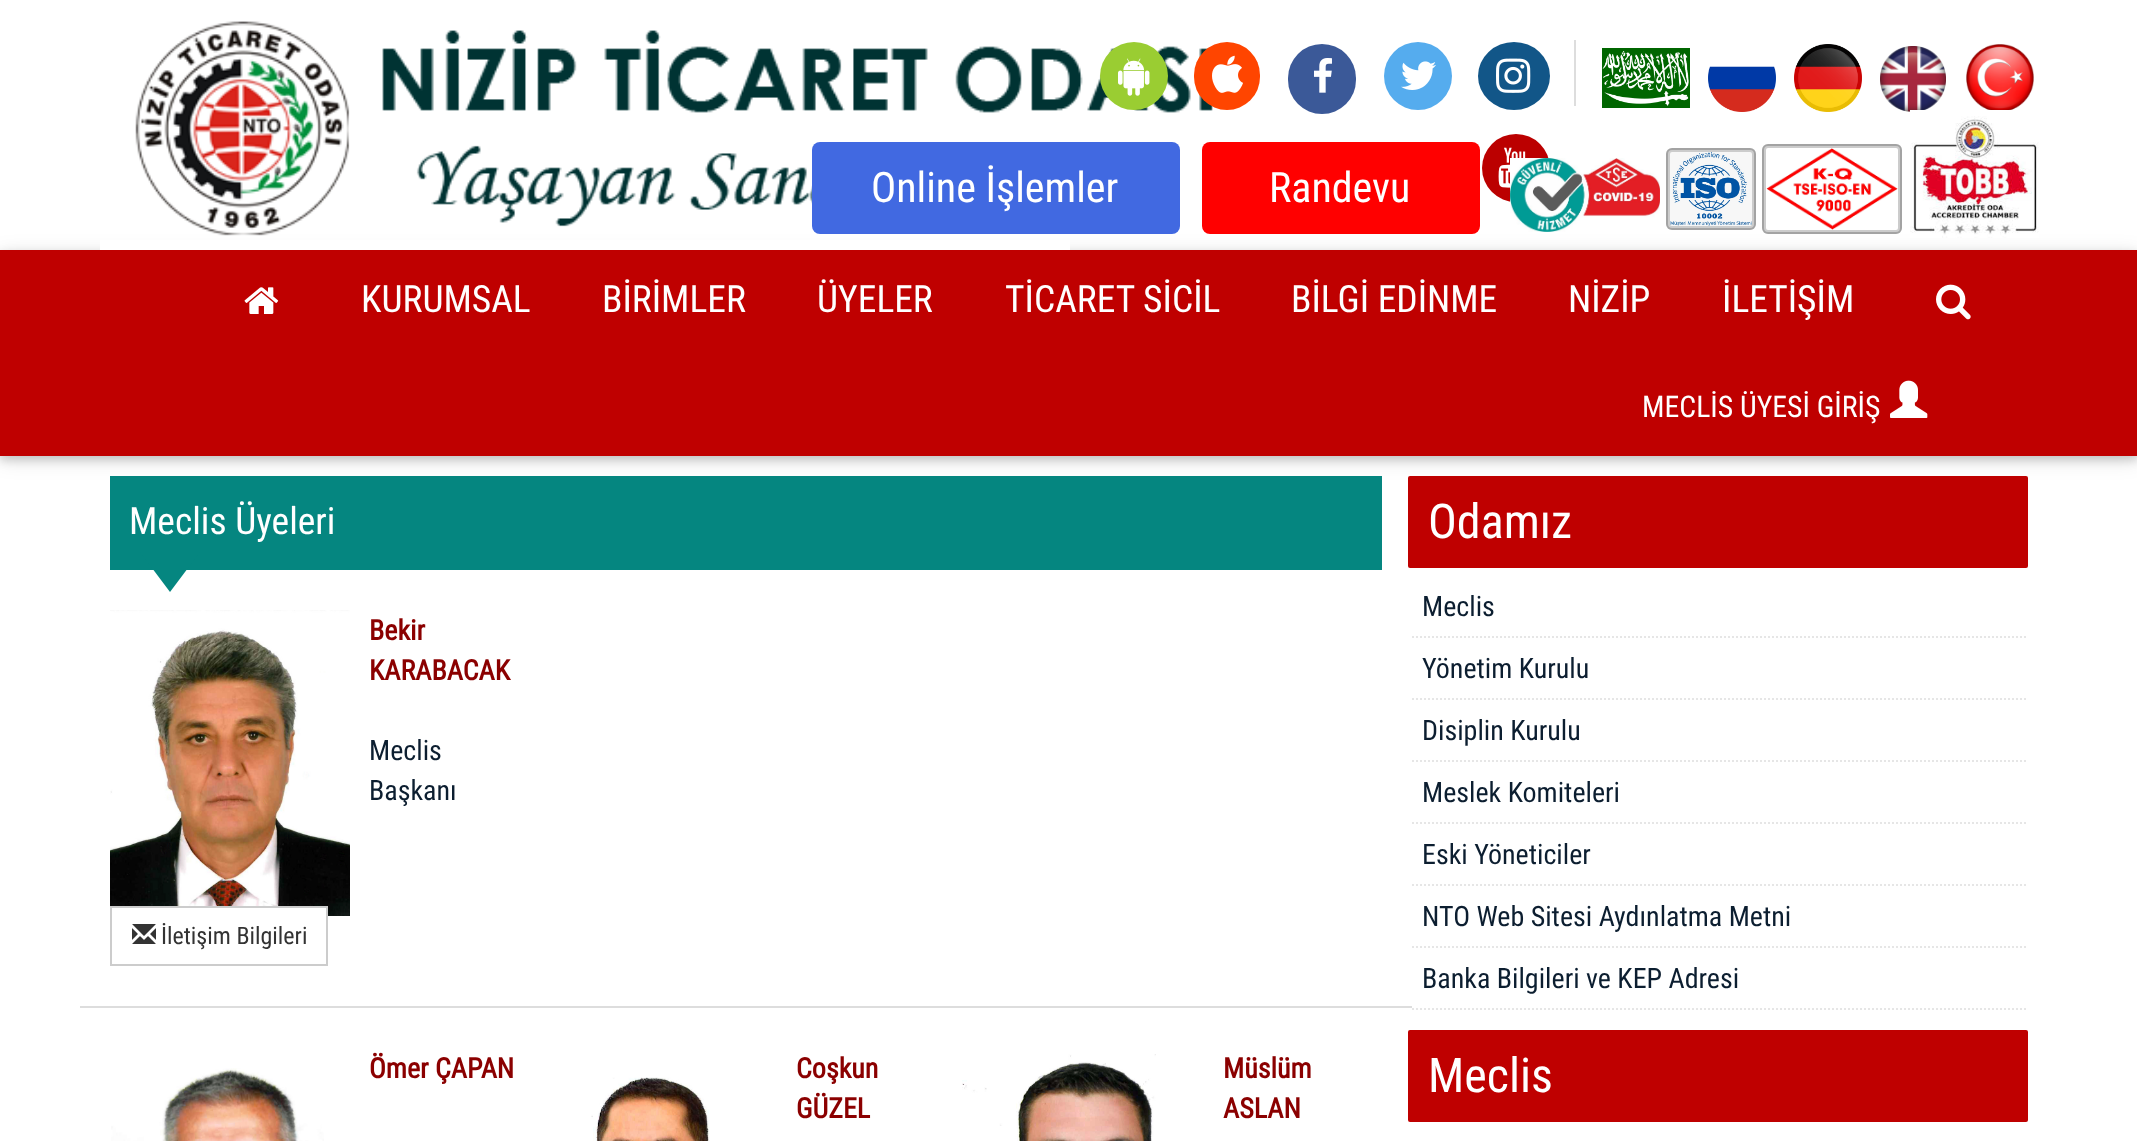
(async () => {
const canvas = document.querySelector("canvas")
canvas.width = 2137
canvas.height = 1141
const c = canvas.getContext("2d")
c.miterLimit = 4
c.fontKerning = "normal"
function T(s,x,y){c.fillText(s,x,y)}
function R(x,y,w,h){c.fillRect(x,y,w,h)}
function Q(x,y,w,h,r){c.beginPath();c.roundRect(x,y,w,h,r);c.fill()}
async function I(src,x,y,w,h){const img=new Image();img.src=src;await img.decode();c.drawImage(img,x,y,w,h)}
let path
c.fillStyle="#fff"
R(0,0,2137,1141)
c.fillStyle="#0000001f"
c.filter="blur(10px)"
c.beginPath()
c.rect(0,254,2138,206)
c.fill()
c.filter="none"
c.fillStyle="#00000029"
c.filter="blur(5px)"
c.beginPath()
c.rect(0,254,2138,206)
c.fill()
c.filter="none"
c.fillStyle="#fff"
R(100,240,970,10)
await I("1.png",135,21,1078,215)
c.fillStyle="#9acd32"
c.beginPath()
c.arc(1134,76,34,0,7)
c.fill()
await I("2.png",1118,58,32,38)
c.fillStyle="#ff4500"
Q(1194,42,66,68,33)
await I("3.png",1212,55,31,38)
c.fillStyle="#3b5998"
Q(1288,44,68,70,34)
await I("4.png",1314,58,18,35)
c.fillStyle="#55acee"
c.beginPath()
c.arc(1418,76,34,0,7)
c.fill()
await I("5.png",1401,61,35,29)
c.fillStyle="#125688"
c.beginPath()
c.ellipse(1514,76,36,34,0,0,7)
c.fill()
await I("6.png",1496,58,35,35)
c.fillStyle="#b00"
c.beginPath()
c.arc(1516,168,34,0,7)
c.fill()
await I("7.png",1498,147,28,41)
c.fillStyle="#ddd"
R(1574,40,2,66)
await I("8.png",1602,48,88,60)
await I("9.png",1708,66,68,46)
await I("10.png",1794,44,68,68)
await I("11.png",1880,46,66,66)
await I("12.png",1966,44,68,66)
c.fillStyle="#4169e1"
Q(812,142,368,92,8)
c.font="42px Roboto Condensed"
c.fillStyle="#fff"
T("Online İşlemler",871,202)
c.fillStyle="#f00"
Q(1202,142,278,92,8)
c.fillStyle="#fff"
T("Randevu",1269,202)
c.fillStyle="#ccc"
Q(1762,144,140,90,6)
await I("13.png",1910,110,129,128)
Q(1666,148,90,82,6)
c.beginPath()
c.roundRect(1763,145,138,88,5)
c.strokeStyle="#00000033"
c.lineWidth=2
c.stroke()
c.beginPath()
c.roundRect(1667,149,88,80,5)
c.stroke()
await I("14.png",1766,148,132,82)
await I("15.png",1510,158,150,74)
await I("16.png",1670,152,82,74)
c.fillStyle="#bf0000"
R(0,250,2137,206)
await I("17.png",244,287,35,27)
c.font="37.5px Roboto Condensed"
c.fillStyle="#fff"
T("KURUMSAL",361,312)
T("BİRİMLER",602,312)
T("ÜYELER",817,312)
T("TİCARET SİCİL",1005,312)
T("BİLGİ EDİNME",1291,312)
T("NİZİP",1568,312)
T("İLETİŞİM",1722,312)
await I("18.png",1936,284,35,36)
c.font="29.75px Roboto Condensed"
T("MECLİS ÜYESİ GİRİŞ",1642,417)
await I("19.png",1890,380,38,38)
c.fillStyle="#058680"
R(110,476,1272,94)
c.font="37.5px Roboto Condensed"
c.fillStyle="#fff"
T("Meclis Üyeleri",129,534)
c.fillStyle="#058680"
path = new Path2D("M140 552h60l-30 40z")
c.fill(path)
c.fillStyle="#ddd"
R(80,1006,1332,2)
await I("20.png",110,610,240,306)
c.font="bold 28px Roboto Condensed"
c.fillStyle="#8b0000"
T("Bekir",369,640)
T("KARABACAK",369,680)
c.font="28px Roboto Condensed"
c.fillStyle="#0c1e30"
T("Meclis",369,760)
T("Başkanı",369,800)
c.fillStyle="#fff"
R(112,908,214,8)
c.strokeStyle="#ccc"
c.strokeRect(111,907,216,58)
await I("21.png",132,924,24,20)
c.font="24px Roboto Condensed"
c.fillStyle="#333"
T("İletişim Bilgileri",161,944)
await I("22.png",111,1068,213,73)
c.font="bold 28px Roboto Condensed"
c.fillStyle="#8b0000"
T("Ömer ÇAPAN",369,1078)
T("Coşkun",796,1078)
await I("23.png",591,1077,119,64)
T("GÜZEL",796,1118)
await I("24.png",962,1054,194,87)
T("Müslüm",1223,1078)
T("ASLAN",1223,1118)
c.fillStyle="#bf0000"
Q(1408,476,620,92,2)
c.font="48px Roboto Condensed"
c.fillStyle="#fff"
T("Odamız",1428,538)
path = new Path2D("M1412 637h616")
c.strokeStyle="#e6e6e6"
c.setLineDash([2,2])
c.stroke(path)
c.font="28px Roboto Condensed"
c.fillStyle="#0c1e30"
T("Meclis",1422,616)
path = new Path2D("M1412 699h616")
c.stroke(path)
T("Yönetim Kurulu",1422,678)
path = new Path2D("M1412 761h616")
c.stroke(path)
T("Disiplin Kurulu",1422,740)
path = new Path2D("M1412 823h616")
c.stroke(path)
T("Meslek Komiteleri",1422,802)
path = new Path2D("M1412 885h616")
c.stroke(path)
T("Eski Yöneticiler",1422,864)
path = new Path2D("M1412 947h616")
c.stroke(path)
T("NTO Web Sitesi Aydınlatma Metni",1422,926)
path = new Path2D("M1412 1009h616")
c.stroke(path)
T("Banka Bilgileri ve KEP Adresi",1422,988)
c.fillStyle="#bf0000"
Q(1408,1030,620,92,2)
c.font="48px Roboto Condensed"
c.fillStyle="#fff"
T("Meclis",1428,1092)
})()
